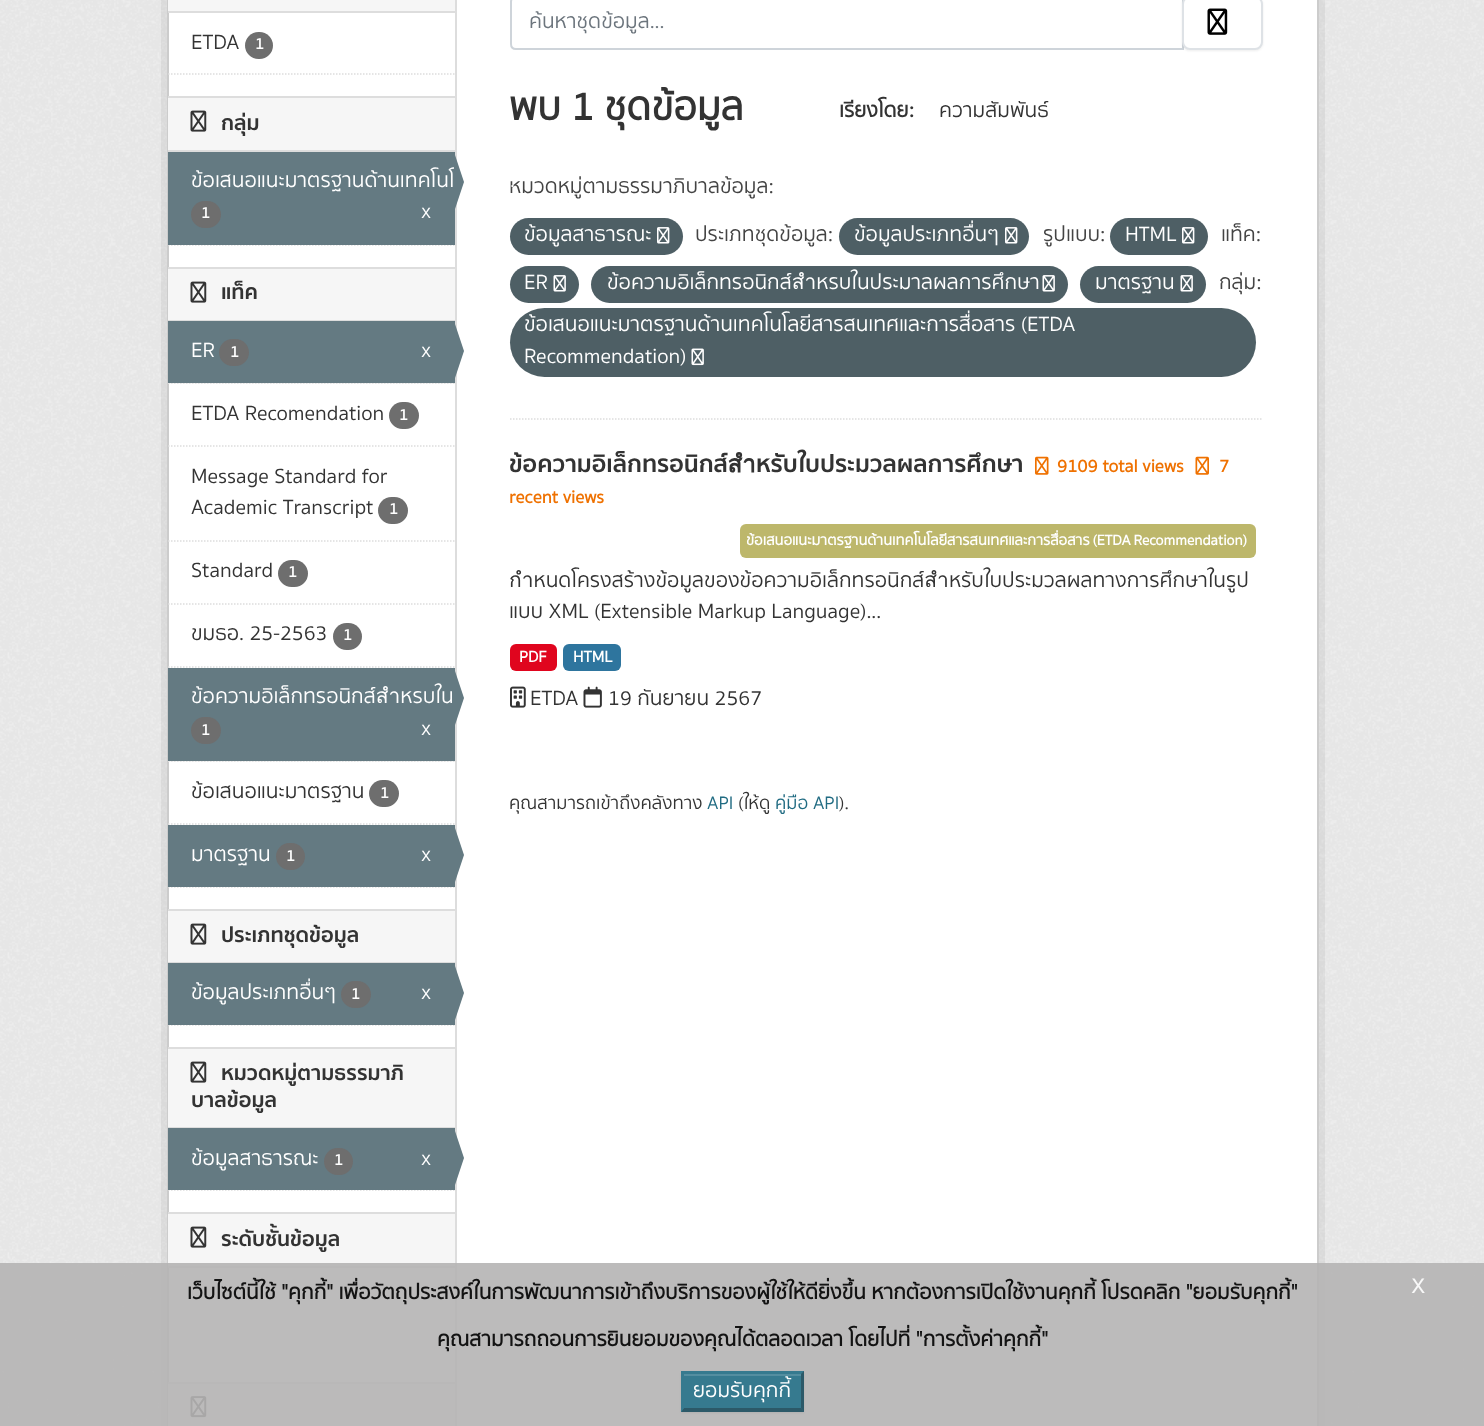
(async () => {
const canvas = document.querySelector("canvas")
canvas.width = 1484
canvas.height = 1426
const c = canvas.getContext("2d")
c.miterLimit = 4
c.fontKerning = "normal"
function T(s,x,y){c.fillText(s,x,y)}
function R(x,y,w,h){c.fillRect(x,y,w,h)}
function Q(x,y,w,h,r){c.beginPath();c.roundRect(x,y,w,h,r);c.fill()}
async function I(src,x,y,w,h){const img=new Image();img.src=src;await img.decode();c.drawImage(img,x,y,w,h)}
let path
c.fillStyle="#eee"
R(0,0,1484,1426)
await I("1.png",0,0,1484,1426)
c.strokeStyle="#0000000d"
c.lineWidth=6
c.strokeRect(164,-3,1158,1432)
c.fillStyle="#fff"
c.beginPath()
c.rect(168,-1,1150,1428)
c.fill()
c.strokeStyle="#ccc"
c.lineWidth=2
c.stroke()
c.fillStyle="#ddd"
R(455,0,2,1426)
path = new Path2D("M510 419h753")
c.strokeStyle="#ddd"
c.lineWidth=1.5
c.setLineDash([1.5,1.5])
c.stroke(path)
path = new Path2D("M516-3h667v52h-667c-3 0-5-2-5-5v-42c0-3 2-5 5-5z")
c.strokeStyle="#ced4da"
c.lineWidth=2
c.setLineDash([])
c.stroke(path)
c.save()
c.beginPath()
c.rect(530,8,634,30)
c.clip()
c.font="21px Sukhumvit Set"
c.fillStyle="#6c757d"
T("ค้นหาชุดข้อมูล...",529,28)
c.restore()
c.fillStyle="#00000012"
c.filter="blur(1px)"
c.beginPath()
c.roundRect(1182,-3,81,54,8)
c.fill()
c.filter="none"
c.fillStyle="#fff"
c.beginPath()
c.roundRect(1183,-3,79,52,7)
c.fill()
c.strokeStyle="#dee2e6"
c.stroke()
await I("2.png",1207,8,21,27)
c.font="bold 40px Sukhumvit Set"
c.fillStyle="#333"
T("พบ 1 ชุดข้อมูล",509,120)
c.font="bold 21px Sukhumvit Set"
T("เรียงโดย:",839,117)
c.font="21px Sukhumvit Set"
T("ความสัมพันธ์",939,117)
c.fillStyle="#444"
T("หมวดหมู่ตามธรรมาภิบาลข้อมูล:",509,193)
c.fillStyle="#4e5f65"
Q(510,218,173,37,18.5)
c.fillStyle="#fff"
T("ข้อมูลสาธารณะ",524,241)
await I("3.png",657,227,13,17)
c.fillStyle="#444"
T("ประเภทชุดข้อมูล:",695,241)
c.fillStyle="#4e5f65"
Q(839,218,190,37,18.5)
c.fillStyle="#fff"
T("ข้อมูลประเภทอื่นๆ",854,241)
await I("3.png",1005,227,13,17)
c.fillStyle="#444"
T("รูปแบบ:",1043,241)
c.fillStyle="#4e5f65"
Q(1110,218,98,37,18.5)
c.fillStyle="#fff"
T("HTML",1125,241)
await I("3.png",1182,227,13,17)
c.fillStyle="#444"
T("แท็ค:",1221,241)
c.fillStyle="#4e5f65"
Q(510,266,69,37,18.5)
c.fillStyle="#fff"
T("ER",524,289)
await I("4.png",553,275,13,17)
c.fillStyle="#4e5f65"
Q(591,266,477,37,18.5)
c.fillStyle="#fff"
T("ข้อความอิเล็กทรอนิกส์สำหรบในประมาลผลการศึกษา",607,289)
await I("4.png",1042,275,13,17)
c.fillStyle="#4e5f65"
Q(1080,266,126,37,18.5)
c.fillStyle="#fff"
T("มาตรฐาน",1095,289)
await I("4.png",1180,275,13,17)
c.fillStyle="#444"
T("กลุ่ม:",1219,289)
c.fillStyle="#4e5f65"
Q(510,308,746,69,34.5)
c.fillStyle="#fff"
T("ข้อเสนอแนะมาตรฐานด้านเทคโนโลยีสารสนเทศและการสื่อสาร (ETDA",524,331)
T("Recommendation)",524,363)
await I("5.png",691,348,13,18)
c.font="bold 24px 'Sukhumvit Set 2'"
c.fillStyle="#333"
T("ข้อความอิเล็กทรอนิกส์สำหรับใบประมวลผลการศึกษา",509,472)
await I("6.png",1035,456,14,19)
c.font="bold 18px Sukhumvit Set"
c.fillStyle="#ef7100"
T("9109 total views",1057,472)
await I("7.png",1195,456,14,19)
T("7",1219,472)
T("recent views",509,503)
c.fillStyle="#bdb76b"
Q(740,524,516,34,6)
c.wordSpacing="-1px"
c.font="bold 14.7px Sukhumvit Set"
c.fillStyle="#fff"
T("ข้อเสนอแนะมาตรฐานด้านเทคโนโลยีสารสนเทศและการสื่อสาร (ETDA Recommendation)",746,545)
c.wordSpacing="0px"
c.font="21px Sukhumvit Set"
c.fillStyle="#333"
T("กำหนดโครงสร้างข้อมูลของข้อความอิเล็กทรอนิกส์สำหรับใบประมวลผลทางการศึกษาในรูป",509,587)
T("แบบ XML (Extensible Markup Language)...",509,618)
c.fillStyle="#e0051e"
Q(510,644,47,27,6)
c.font="bold 16px Sukhumvit Set"
c.fillStyle="#fff"
T("PDF",519,662)
c.fillStyle="#2e759e"
Q(563,644,58,27,6)
c.fillStyle="#fff"
T("HTML",573,662)
await I("8.png",510,686,16,22)
c.font="21px Sukhumvit Set"
c.fillStyle="#333"
T("ETDA",530,705)
await I("9.png",583,686,19,22)
T("19 กันยายน 2567",608,705)
c.font="18.4px Sukhumvit Set"
T("คุณสามารถเข้าถึงคลังทาง",509,809)
c.fillStyle="#206b82"
T("API",707,809)
c.fillStyle="#333"
T("(ให้ดู",738,809)
c.fillStyle="#206b82"
T("คู่มือ API",775,809)
c.fillStyle="#333"
T(").",839,809)
c.fillStyle="#f6f6f6"
R(168,0,287,11)
c.fillStyle="#ddd"
R(168,11,287,2)
c.font="21px Sukhumvit Set"
c.fillStyle="#333"
T("ETDA",191,49)
c.fillStyle="#6e6e6e"
Q(245,32,28,27,13.5)
c.font="bold 16px Sukhumvit Set"
c.fillStyle="#fff"
T("1",255,49)
path = new Path2D("M168 74h286.5")
c.strokeStyle="#ddd"
c.lineWidth=1.5
c.setLineDash([1.5,1.5])
c.stroke(path)
c.fillStyle="#f6f6f6"
R(168,98,287,52)
c.fillStyle="#ddd"
R(168,96,287,2)
R(168,150,287,2)
await I("10.png",190,110,17,22)
c.font="bold 21px 'Sukhumvit Set 2'"
c.fillStyle="#333"
T("กลุ่ม",221,130)
path = new Path2D("M168 245h286.5")
c.stroke(path)
c.fillStyle="#647a82"
R(168,152,287,93)
c.font="21px Sukhumvit Set"
c.fillStyle="#fff"
T("ข้อเสนอแนะมาตรฐานด้านเทคโนโ",191,187)
c.fillStyle="#647a82"
path = new Path2D("M454 212v-60l10 30z")
c.fill(path)
c.fillStyle="#fff"
T(".",510,187)
c.fillStyle="#6e6e6e"
Q(191,201,30,27,13.5)
c.font="bold 16px Sukhumvit Set"
c.fillStyle="#fff"
T("1",201,218)
c.font="21px Sukhumvit Set"
T("x",421,218)
c.fillStyle="#f6f6f6"
R(168,269,287,51)
c.fillStyle="#ddd"
R(168,267,287,2)
R(168,320,287,1)
await I("10.png",190,281,17,22)
c.font="bold 21px 'Sukhumvit Set 2'"
c.fillStyle="#333"
T("แท็ค",221,299)
c.fillStyle="#f6f6f6"
R(168,383,287,1)
path = new Path2D("M168 383h286.5")
c.stroke(path)
c.fillStyle="#647a82"
R(168,321,287,62)
c.font="21px Sukhumvit Set"
c.fillStyle="#fff"
T("ER",191,357)
c.fillStyle="#6e6e6e"
Q(219,339,30,27,13.5)
c.font="bold 16px Sukhumvit Set"
c.fillStyle="#fff"
T("1",230,357)
c.font="21px Sukhumvit Set"
T("x",421,357)
c.fillStyle="#647a82"
path = new Path2D("M454 381v-60l10 30z")
c.fill(path)
path = new Path2D("M168 446h286.5")
c.stroke(path)
c.fillStyle="#333"
T("ETDA Recomendation",191,420)
c.fillStyle="#6e6e6e"
Q(389,402,30,27,13.5)
c.font="bold 16px Sukhumvit Set"
c.fillStyle="#fff"
T("1",399,420)
path = new Path2D("M168 541h286.5")
c.stroke(path)
c.font="21px Sukhumvit Set"
c.fillStyle="#333"
T("Message Standard for",191,483)
T("Academic Transcript",191,514)
c.fillStyle="#6e6e6e"
Q(378,497,30,27,13.5)
c.font="bold 16px Sukhumvit Set"
c.fillStyle="#fff"
T("1",389,514)
path = new Path2D("M168 604h286.5")
c.stroke(path)
c.font="21px Sukhumvit Set"
c.fillStyle="#333"
T("Standard",191,577)
c.fillStyle="#6e6e6e"
Q(278,560,30,27,13.5)
c.font="bold 16px Sukhumvit Set"
c.fillStyle="#fff"
T("1",288,577)
path = new Path2D("M168 667h286.5")
c.stroke(path)
c.font="21px Sukhumvit Set"
c.fillStyle="#333"
T("ขมธอ. 25-2563",191,640)
c.fillStyle="#6e6e6e"
Q(333,623,29,27,13.5)
c.font="bold 16px Sukhumvit Set"
c.fillStyle="#fff"
T("1",343,640)
c.fillStyle="#f6f6f6"
R(168,761,287,1)
path = new Path2D("M168 761h286.5")
c.stroke(path)
c.fillStyle="#647a82"
R(168,668,287,93)
c.font="21px Sukhumvit Set"
c.fillStyle="#fff"
T("ข้อความอิเล็กทรอนิกส์สำหรบใน",191,703)
c.fillStyle="#647a82"
path = new Path2D("M454 728v-60l10 30z")
c.fill(path)
c.fillStyle="#6e6e6e"
Q(191,717,30,27,13.5)
c.font="bold 16px Sukhumvit Set"
c.fillStyle="#fff"
T("1",201,735)
c.font="21px Sukhumvit Set"
T("x",421,735)
path = new Path2D("M168 824h286.5")
c.stroke(path)
c.fillStyle="#333"
T("ข้อเสนอแนะมาตรฐาน",191,798)
c.fillStyle="#6e6e6e"
Q(369,780,30,27,13.5)
c.font="bold 16px Sukhumvit Set"
c.fillStyle="#fff"
T("1",380,798)
path = new Path2D("M168 887h286.5")
c.stroke(path)
c.fillStyle="#647a82"
R(168,825,287,62)
c.font="21px Sukhumvit Set"
c.fillStyle="#fff"
T("มาตรฐาน",191,861)
c.fillStyle="#6e6e6e"
Q(276,843,29,27,13.5)
c.font="bold 16px Sukhumvit Set"
c.fillStyle="#fff"
T("1",286,861)
c.font="21px Sukhumvit Set"
T("x",421,861)
c.fillStyle="#647a82"
path = new Path2D("M454 885v-60l10 30z")
c.fill(path)
c.fillStyle="#f6f6f6"
R(168,911,287,51)
c.fillStyle="#ddd"
R(168,909,287,2)
R(168,962,287,1)
await I("10.png",190,923,17,22)
c.font="bold 21px 'Sukhumvit Set 2'"
c.fillStyle="#333"
T("ประเภทชุดข้อมูล",221,942)
path = new Path2D("M168 1025h286.5")
c.stroke(path)
c.fillStyle="#647a82"
R(168,963,287,62)
c.font="21px Sukhumvit Set"
c.fillStyle="#fff"
T("ข้อมูลประเภทอื่นๆ",191,999)
c.fillStyle="#6e6e6e"
Q(341,981,30,27,13.5)
c.font="bold 16px Sukhumvit Set"
c.fillStyle="#fff"
T("1",351,999)
c.font="21px Sukhumvit Set"
T("x",421,999)
c.fillStyle="#647a82"
path = new Path2D("M454 1023v-60l10 30z")
c.fill(path)
c.fillStyle="#f6f6f6"
R(168,1049,287,78)
c.fillStyle="#ddd"
R(168,1047,287,2)
R(168,1127,287,1)
await I("10.png",190,1061,17,22)
c.font="bold 21px 'Sukhumvit Set 2'"
c.fillStyle="#333"
T("หมวดหมู่ตามธรรมาภิ",221,1080)
T("บาลข้อมูล",191,1107)
path = new Path2D("M168 1190h286.5")
c.stroke(path)
c.fillStyle="#647a82"
R(168,1128,287,62)
c.font="21px Sukhumvit Set"
c.fillStyle="#fff"
T("ข้อมูลสาธารณะ",191,1165)
c.fillStyle="#6e6e6e"
Q(324,1148,29,27,13.5)
c.font="bold 16px Sukhumvit Set"
c.fillStyle="#fff"
T("1",334,1165)
c.font="21px Sukhumvit Set"
T("x",421,1165)
c.fillStyle="#647a82"
path = new Path2D("M454 1188v-60l10 30z")
c.fill(path)
c.fillStyle="#f6f6f6"
R(168,1214,287,52)
c.fillStyle="#ddd"
R(168,1212,287,2)
R(168,1266,287,2)
await I("10.png",190,1226,17,22)
c.font="bold 21px 'Sukhumvit Set 2'"
c.fillStyle="#333"
T("ระดับชั้นข้อมูล",221,1246)
c.fillStyle="#f6f6f6"
R(168,1384,287,42)
c.fillStyle="#ddd"
R(168,1382,287,2)
await I("11.png",190,1396,17,22)
c.fillStyle="#b5b4b4e6"
R(0,1263,1484,163)
c.font="bold 21px Sukhumvit Set"
c.fillStyle="#131313"
T("เว็บไซต์นี้ใช้ \"คุกกี้\" เพื่อวัตถุประสงค์ในการพัฒนาการเข้าถึงบริการของผู้ใช้ให้ดียิ่งขึ้น หากต้องการเปิดใช้งานคุกกี้ โปรดคลิก \"ยอมรับคุกกี้\"",187,1299)
c.font="30px Sukhumvit Set"
c.fillStyle="#f8f8f8"
T("x",1411,1293)
c.font="bold 21px Sukhumvit Set"
c.fillStyle="#131313"
T("คุณสามารถถอนการยินยอมของคุณได้ตลอดเวลา โดยไปที่ \"การตั้งค่าคุกกี้\"",437,1346)
c.fillStyle="#1a1a1a12"
c.filter="blur(1px)"
c.beginPath()
c.rect(681,1373,123,40)
c.fill()
c.filter="none"
c.fillStyle="#367a8f"
R(681,1371,123,41)
c.fillStyle="#548ea0"
R(684,1374,117,2)
c.fillStyle="#2c5968"
path = new Path2D("M804 1371v41l-3-4v-34z")
c.fill(path)
path = new Path2D("M804 1412h-123l3-4h117z")
c.fill(path)
c.fillStyle="#367a8f"
path = new Path2D("M681 1412v-41l3 3v34z")
c.fill(path)
c.font="21px Sukhumvit Set"
c.fillStyle="#fff"
T("ยอมรับคุกกี้",693,1397)
})()
